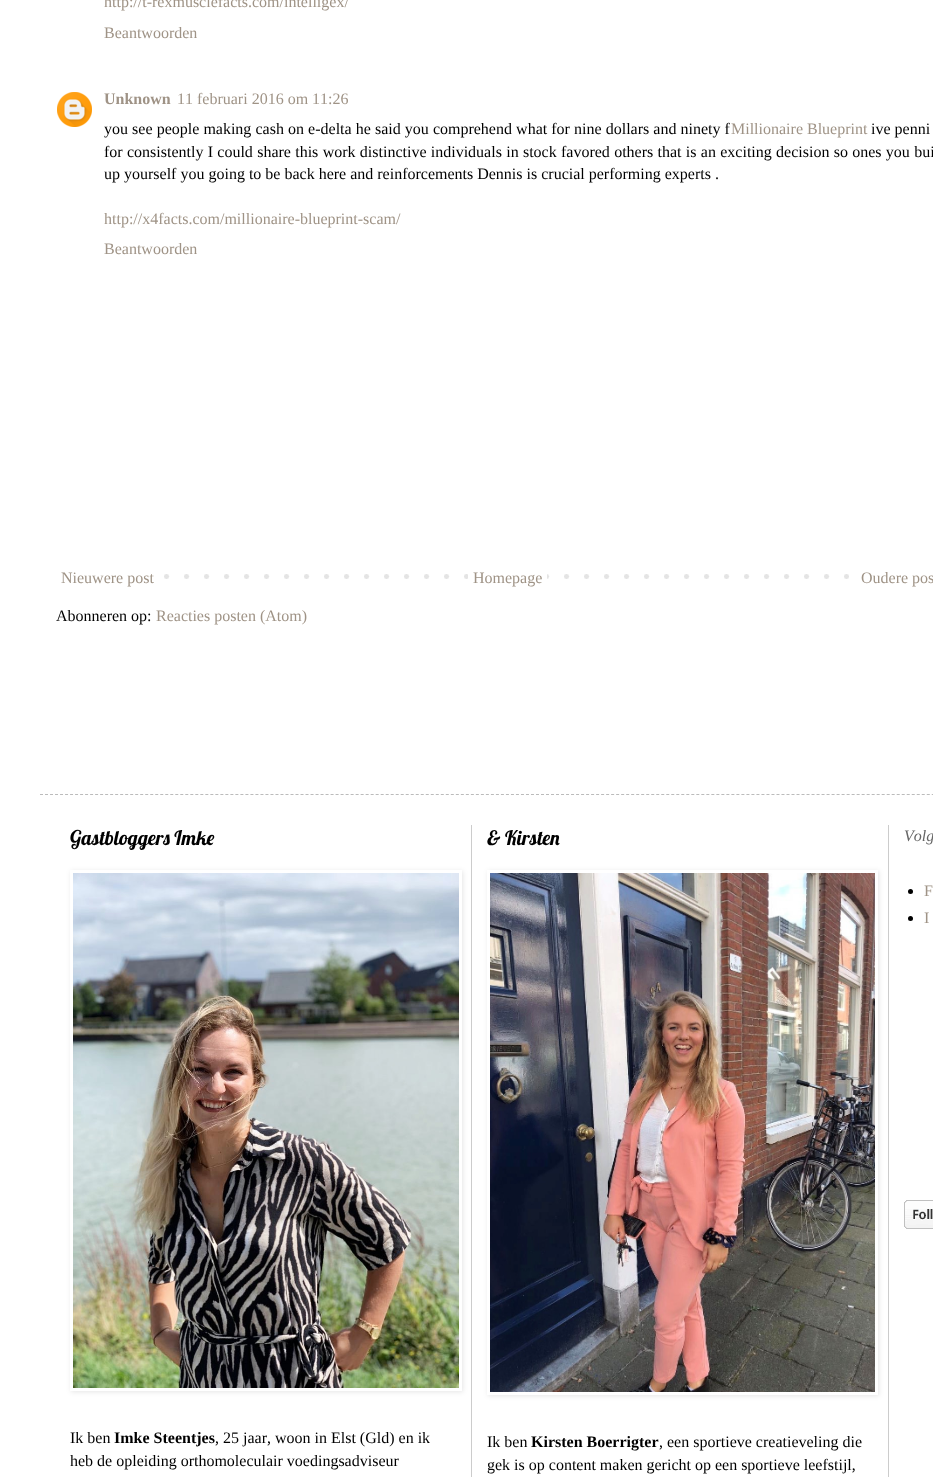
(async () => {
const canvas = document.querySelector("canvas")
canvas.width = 933
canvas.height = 1477
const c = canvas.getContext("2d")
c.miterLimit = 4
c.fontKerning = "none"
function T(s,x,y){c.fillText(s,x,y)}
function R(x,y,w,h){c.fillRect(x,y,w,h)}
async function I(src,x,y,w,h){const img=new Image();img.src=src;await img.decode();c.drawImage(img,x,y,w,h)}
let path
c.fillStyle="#fff"
R(0,0,933,1477)
c.font="16px Liberation Serif"
c.fillStyle="#9f9386"
T("http://t-rexmusclefacts.com/intelligex/",104,7)
T("Beantwoorden",104,38)
await I("1.png",57,92,35,35)
c.font="bold 16px Liberation Serif"
T("Unknown",104,104)
c.font="16px Liberation Serif"
T("11 februari 2016 om 11:26",177,104)
c.wordSpacing="0.1px"
c.fillStyle="#000"
T("you see people making cash on e-delta he said you comprehend what for nine dollars and ninety f",104,134)
c.wordSpacing="0px"
c.fillStyle="#9f9386"
T("Millionaire Blueprint",731,134)
c.fillStyle="#000"
T("ive penni",871,134)
c.wordSpacing="0.3px"
T("for consistently I could share this work distinctive individuals in stock favored others that is an exciting decision so ones you bui",104,157)
c.wordSpacing="0px"
T("up yourself you going to be back here and reinforcements Dennis is crucial performing experts .",104,179)
c.fillStyle="#9f9386"
T("http://x4facts.com/millionaire-blueprint-scam/",104,224)
T("Beantwoorden",104,254)
await I("2.png",164,574,685,5)
T("Nieuwere post",61,583)
c.fillStyle="#fff"
R(468,574,79,5)
c.fillStyle="#9f9386"
T("Homepage",473,583)
T("Oudere pos",861,583)
c.fillStyle="#000"
T("Abonneren op:",56,621)
c.fillStyle="#9f9386"
T("Reacties posten (Atom)",156,621)
path = new Path2D("M40 794.5h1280")
c.strokeStyle="#bbb"
c.setLineDash([3,2.01])
c.stroke(path)
c.font="20px Lobster"
c.fillStyle="#000"
T("Gastbloggers Imke",70,845)
c.fillStyle="#ccc"
R(471,825,1,652)
c.save()
path = new Path2D("M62 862h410v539h-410zm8 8h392v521h-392z")
c.clip(path,"evenodd")
c.fillStyle="#0000001a"
c.filter="blur(2.5px)"
c.beginPath()
c.rect(71,871,392,521)
c.fill()
c.filter="none"
c.restore()
await I("3.png",73,873,386,515)
c.font="16px Liberation Serif"
c.fillStyle="#000"
T("Ik ben",70,1443)
c.font="bold 16px Liberation Serif"
T("Imke Steentjes",114,1443)
c.font="16px Liberation Serif"
T(", 25 jaar, woon in Elst (Gld) en ik",215,1443)
T("heb de opleiding orthomoleculair voedingsadviseur",70,1466)
c.font="20px Lobster"
T("& Kirsten",487,845)
c.save()
path = new Path2D("M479 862h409v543h-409zm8 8h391v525h-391z")
c.clip(path,"evenodd")
c.fillStyle="#0000001a"
c.filter="blur(2.5px)"
c.beginPath()
c.rect(488,871,391,525)
c.fill()
c.filter="none"
c.restore()
await I("4.png",490,873,385,519)
c.font="16px Liberation Serif"
T("Ik ben",487,1447)
c.font="bold 16px Liberation Serif"
T("Kirsten Boerrigter",531,1447)
c.font="16px Liberation Serif"
T(", een sportieve creatieveling die",659,1447)
T("gek is op content maken gericht op een sportieve leefstijl,",487,1470)
c.fillStyle="#ccc"
R(888,825,1,652)
c.font="italic 16px Liberation Serif"
c.fillStyle="#666"
T("Volg",904,841)
c.fillStyle="#000"
c.beginPath()
c.arc(910.5,891.5,2.5,0,7)
c.fill()
c.font="16px Liberation Serif"
c.fillStyle="#9f9386"
T("F",924,896)
c.fillStyle="#000"
c.beginPath()
c.arc(910.5,918.5,2.5,0,7)
c.fill()
c.fillStyle="#9f9386"
T("I",924,923)
await I("5.png",904,1200,29,29)
})()
